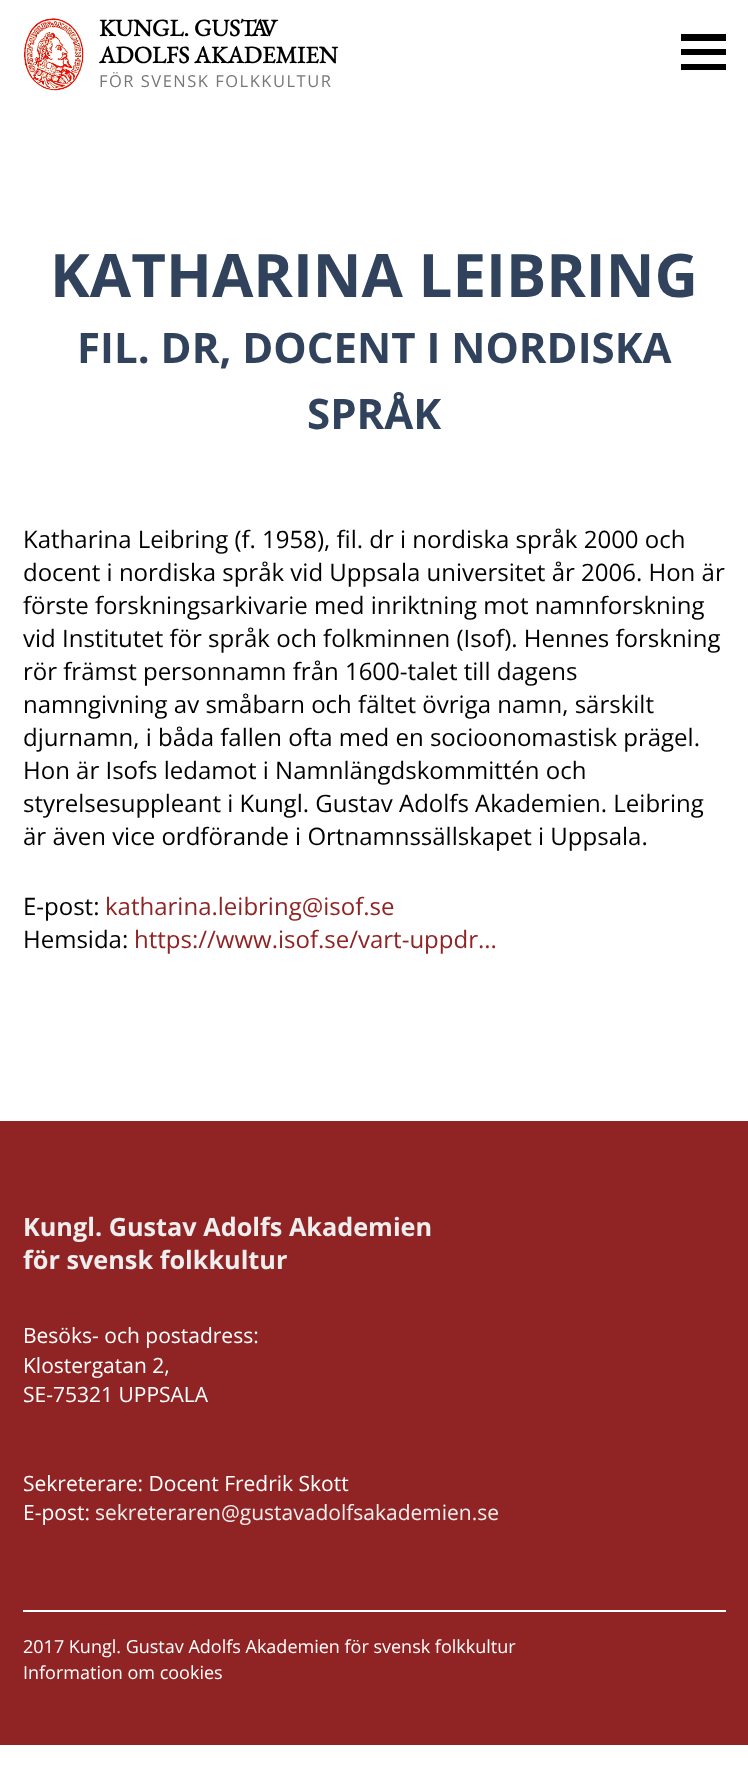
(async () => {
const canvas = document.querySelector("canvas")
canvas.width = 748
canvas.height = 1778
const c = canvas.getContext("2d")
c.miterLimit = 4
c.fontKerning = "normal"
function T(s,x,y){c.fillText(s,x,y)}
function R(x,y,w,h){c.fillRect(x,y,w,h)}
async function I(src,x,y,w,h){const img=new Image();img.src=src;await img.decode();c.drawImage(img,x,y,w,h)}
let path
c.fillStyle="#fff"
R(0,0,748,1778)
await I("1.png",23,18,61,73)
c.font="bold 24px EB Garamond"
c.fillStyle="#000"
T("KUNGL. GUS",99,36)
c.letterSpacing="-3px"
T("TAV",240,36)
c.letterSpacing="0px"
T("ADOLFS AKADEMIEN",99,63)
c.letterSpacing="1.5px"
c.font="16.5px Open Sans"
c.fillStyle="#777"
T("FÖR SVENSK FOLKKULTUR",99,87)
c.fillStyle="#000"
path = new Path2D("M726 41h-45v-7h45zm0 14h-45v-6h45zm0 9h-45v6h45z")
c.fill(path)
c.letterSpacing="0px"
c.font="bold 60px Open Sans"
c.fillStyle="#31425c"
T("KATHARINA LEIBRING",50,297)
c.font="bold 42px Open Sans"
T("FIL. DR, DOCENT I NORDISKA",77,363)
T("SPRÅK",307,429)
c.font="24px Open Sans"
c.fillStyle="#000"
T("Katharina Leibring (f. 1958), fil. dr i nordiska språk 2000 och",23,548)
T("docent i nordiska språk vid Uppsala universitet år 2006. Hon är",23,581)
T("förste forskningsarkivarie med inriktning mot namnforskning",23,614)
T("vid Institutet för språk och folkminnen (Isof). Hennes forskning",23,647)
T("rör främst personnamn från 1600-talet till dagens",23,680)
T("namngivning av småbarn och fältet övriga namn, särskilt",23,713)
T("djurnamn, i båda fallen ofta med en socioonomastisk prägel.",23,746)
T("Hon är Isofs ledamot i Namnlängdskommittén och",23,779)
T("styrelsesuppleant i Kungl. Gustav Adolfs Akademien. Leibring",23,812)
T("är även vice ordförande i Ortnamnssällskapet i Uppsala.",23,845)
T("E-post:",23,915)
c.fillStyle="#902424"
T("katharina.leibring@isof.se",105,915)
c.fillStyle="#000"
T("Hemsida:",23,948)
c.fillStyle="#902424"
T("https://www.isof.se/vart-uppdr...",134,948)
R(0,1121,748,624)
c.font="bold 25.25px Open Sans"
c.fillStyle="#eee"
T("Kungl. Gustav Adolfs Akademien",23,1236)
T("för svensk folkkultur",23,1269)
c.font="21px Open Sans"
c.fillStyle="#fff"
T("Besöks- och postadress:",23,1343)
T("Klostergatan 2,",23,1373)
T("SE-75321 UPPSALA",23,1402)
T("Sekreterare: Docent Fredrik Skott",23,1491)
T("E-post:",23,1520)
c.fillStyle="#eee"
T("sekreteraren@gustavadolfsakademien.se",95,1520)
c.fillStyle="#fff"
R(23,1610,703,2)
c.font="18px Open Sans"
T("2017 Kungl. Gustav Adolfs Akademien för svensk folkkultur",23,1653)
T("Information om cookies",23,1679)
})()
